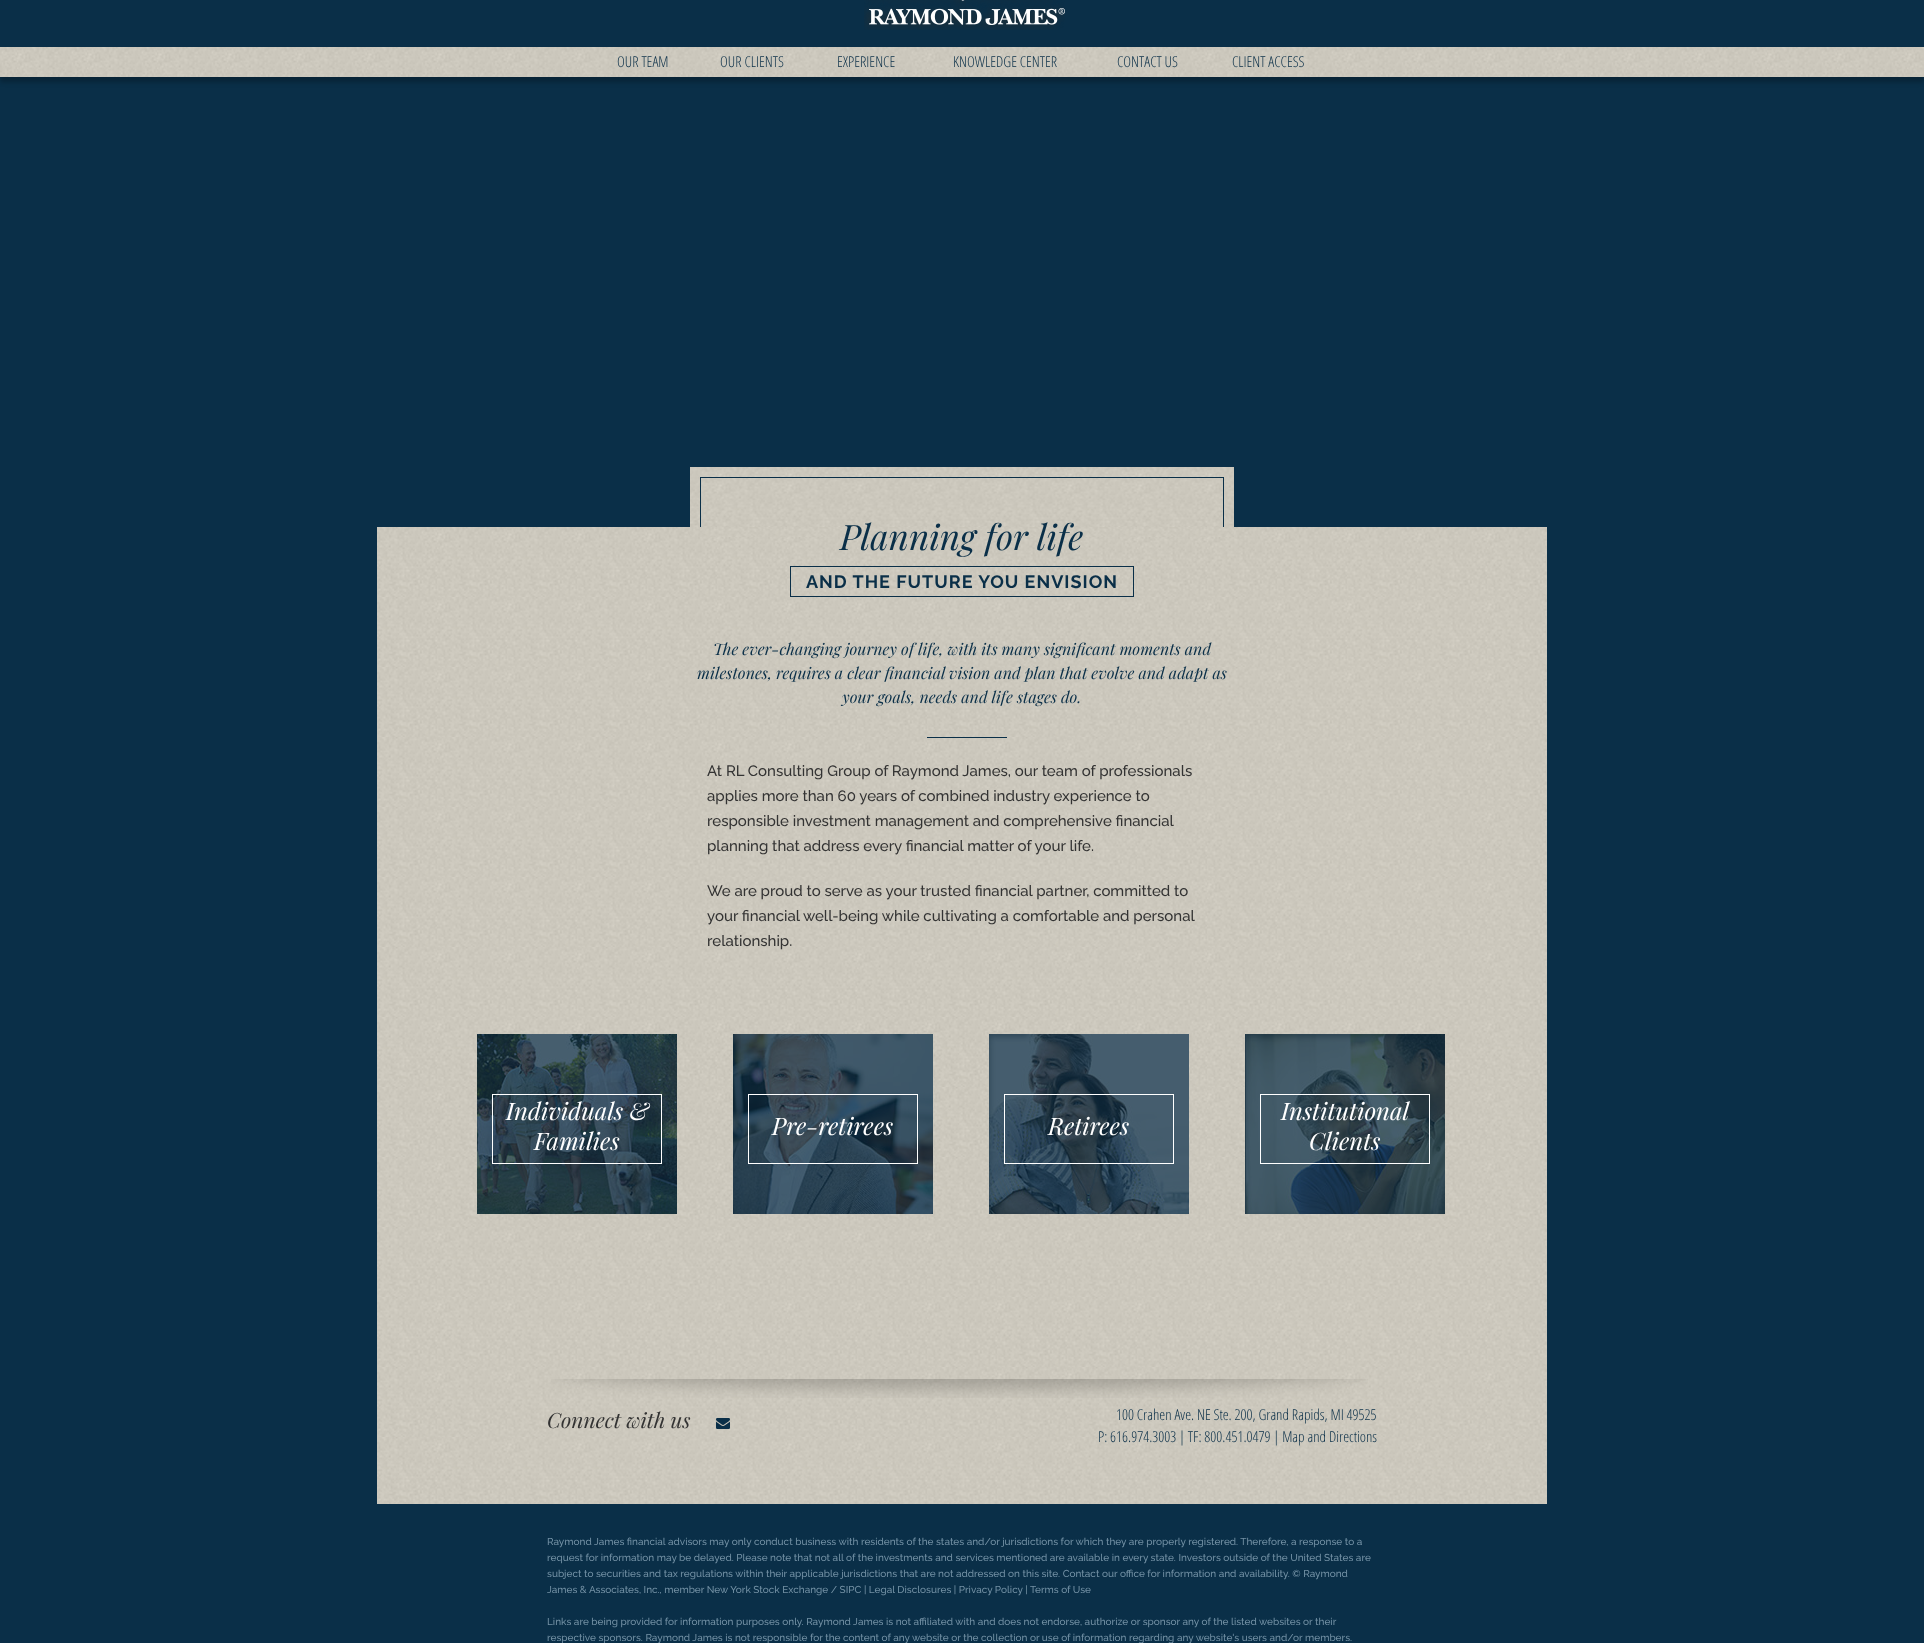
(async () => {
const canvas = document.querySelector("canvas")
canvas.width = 1924
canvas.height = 1643
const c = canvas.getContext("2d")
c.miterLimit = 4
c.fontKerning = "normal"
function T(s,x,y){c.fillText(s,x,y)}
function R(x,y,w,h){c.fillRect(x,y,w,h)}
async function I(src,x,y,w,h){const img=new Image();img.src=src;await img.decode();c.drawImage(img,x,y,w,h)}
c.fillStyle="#0a2f48"
R(0,0,1924,1643)
await I("1.png",864,0,201,30)
c.fillStyle="#00000040"
c.filter="blur(2.5px)"
c.beginPath()
c.rect(0,52,1924,30)
c.fill()
c.filter="none"
await I("2.png",0,47,1924,30)
c.font="300 15px Open Sans Condensed"
c.fillStyle="#0a2f48"
T("OUR TEAM",617,67)
T("OUR CLIENTS",720,67)
T("EXPERIENCE",837,67)
T("KNOWLEDGE CENTER",953,67)
T("CONTACT US",1117,67)
T("CLIENT ACCESS",1232,67)
await I("3.png",377,527,1170,977)
await I("4.png",690,467,544,70)
await I("5.png",701,478,522,49)
R(700,477,524,1)
R(1223,477,1,50)
R(700,477,1,50)
c.font="italic 35px Playfair Display"
T("Planning for life",840,550)
c.strokeStyle="#0a2f48"
c.strokeRect(790.5,566.5,343,30)
c.letterSpacing="1px"
c.font="bold 18px Raleway"
T("AND THE FUTURE YOU ENVISION",806,588)
c.letterSpacing="0px"
c.font="italic 16px Playfair Display"
T("The ever-changing journey of life, with its many significant moments and",713,655)
T("milestones, requires a clear financial vision and plan that evolve and adapt as",697,679)
T("your goals, needs and life stages do.",842,703)
R(927,737,80,1)
c.font="500 15px Raleway"
c.fillStyle="#333"
T("At RL Consulting Group of Raymond James, our team of professionals",707,776)
T("applies more than 60 years of combined industry experience to",707,801)
T("responsible investment management and comprehensive financial",707,826)
T("planning that address every financial matter of your life.",707,851)
T("We are proud to serve as your trusted financial partner, committed to",707,896)
T("your financial well-being while cultivating a comfortable and personal",707,921)
T("relationship.",707,946)
await I("6.png",477,1034,200,180)
c.strokeStyle="#fff"
c.strokeRect(492.5,1094.5,169,69)
c.font="italic 24px Playfair Display"
c.fillStyle="#fff"
T("Individuals &",506,1120)
T("Families",534,1150)
await I("7.png",733,1034,200,180)
c.strokeRect(748.5,1094.5,169,69)
T("Pre-retirees",772,1135)
await I("8.png",989,1034,200,180)
c.strokeRect(1004.5,1094.5,169,69)
T("Retirees",1048,1135)
await I("9.png",1245,1034,200,180)
c.strokeRect(1260.5,1094.5,169,69)
T("Institutional",1281,1120)
T("Clients",1309,1150)
await I("10.png",551,1379,817,19)
c.font="italic 21px Playfair Display"
c.fillStyle="#333"
T("Connect with us",547,1428)
await I("11.png",716,1418,14,11)
c.font="300 15px Open Sans Condensed"
c.fillStyle="#0a2f48"
T("100 Crahen Ave. NE Ste. 200, Grand Rapids, MI 49525",1116,1420)
T("P: 616.974.3003 | TF: 800.451.0479 | Map and Directions",1098,1442)
c.font="500 10px Raleway"
c.fillStyle="#7290a4"
T("Raymond James financial advisors may only conduct business with residents of the states and/or jurisdictions for which they are properly registered. Therefore, a response to a",547,1545)
T("request for information may be delayed. Please note that not all of the investments and services mentioned are available in every state. Investors outside of the United States are",547,1561)
T("subject to securities and tax regulations within their applicable jurisdictions that are not addressed on this site. Contact our office for information and availability. © Raymond",547,1577)
T("James & Associates, Inc., member New York Stock Exchange / SIPC | Legal Disclosures | Privacy Policy | Terms of Use",547,1593)
T("Links are being provided for information purposes only. Raymond James is not affiliated with and does not endorse, authorize or sponsor any of the listed websites or their",547,1625)
T("respective sponsors. Raymond James is not responsible for the content of any website or the collection or use of information regarding any website's users and/or members.",547,1641)
})()
